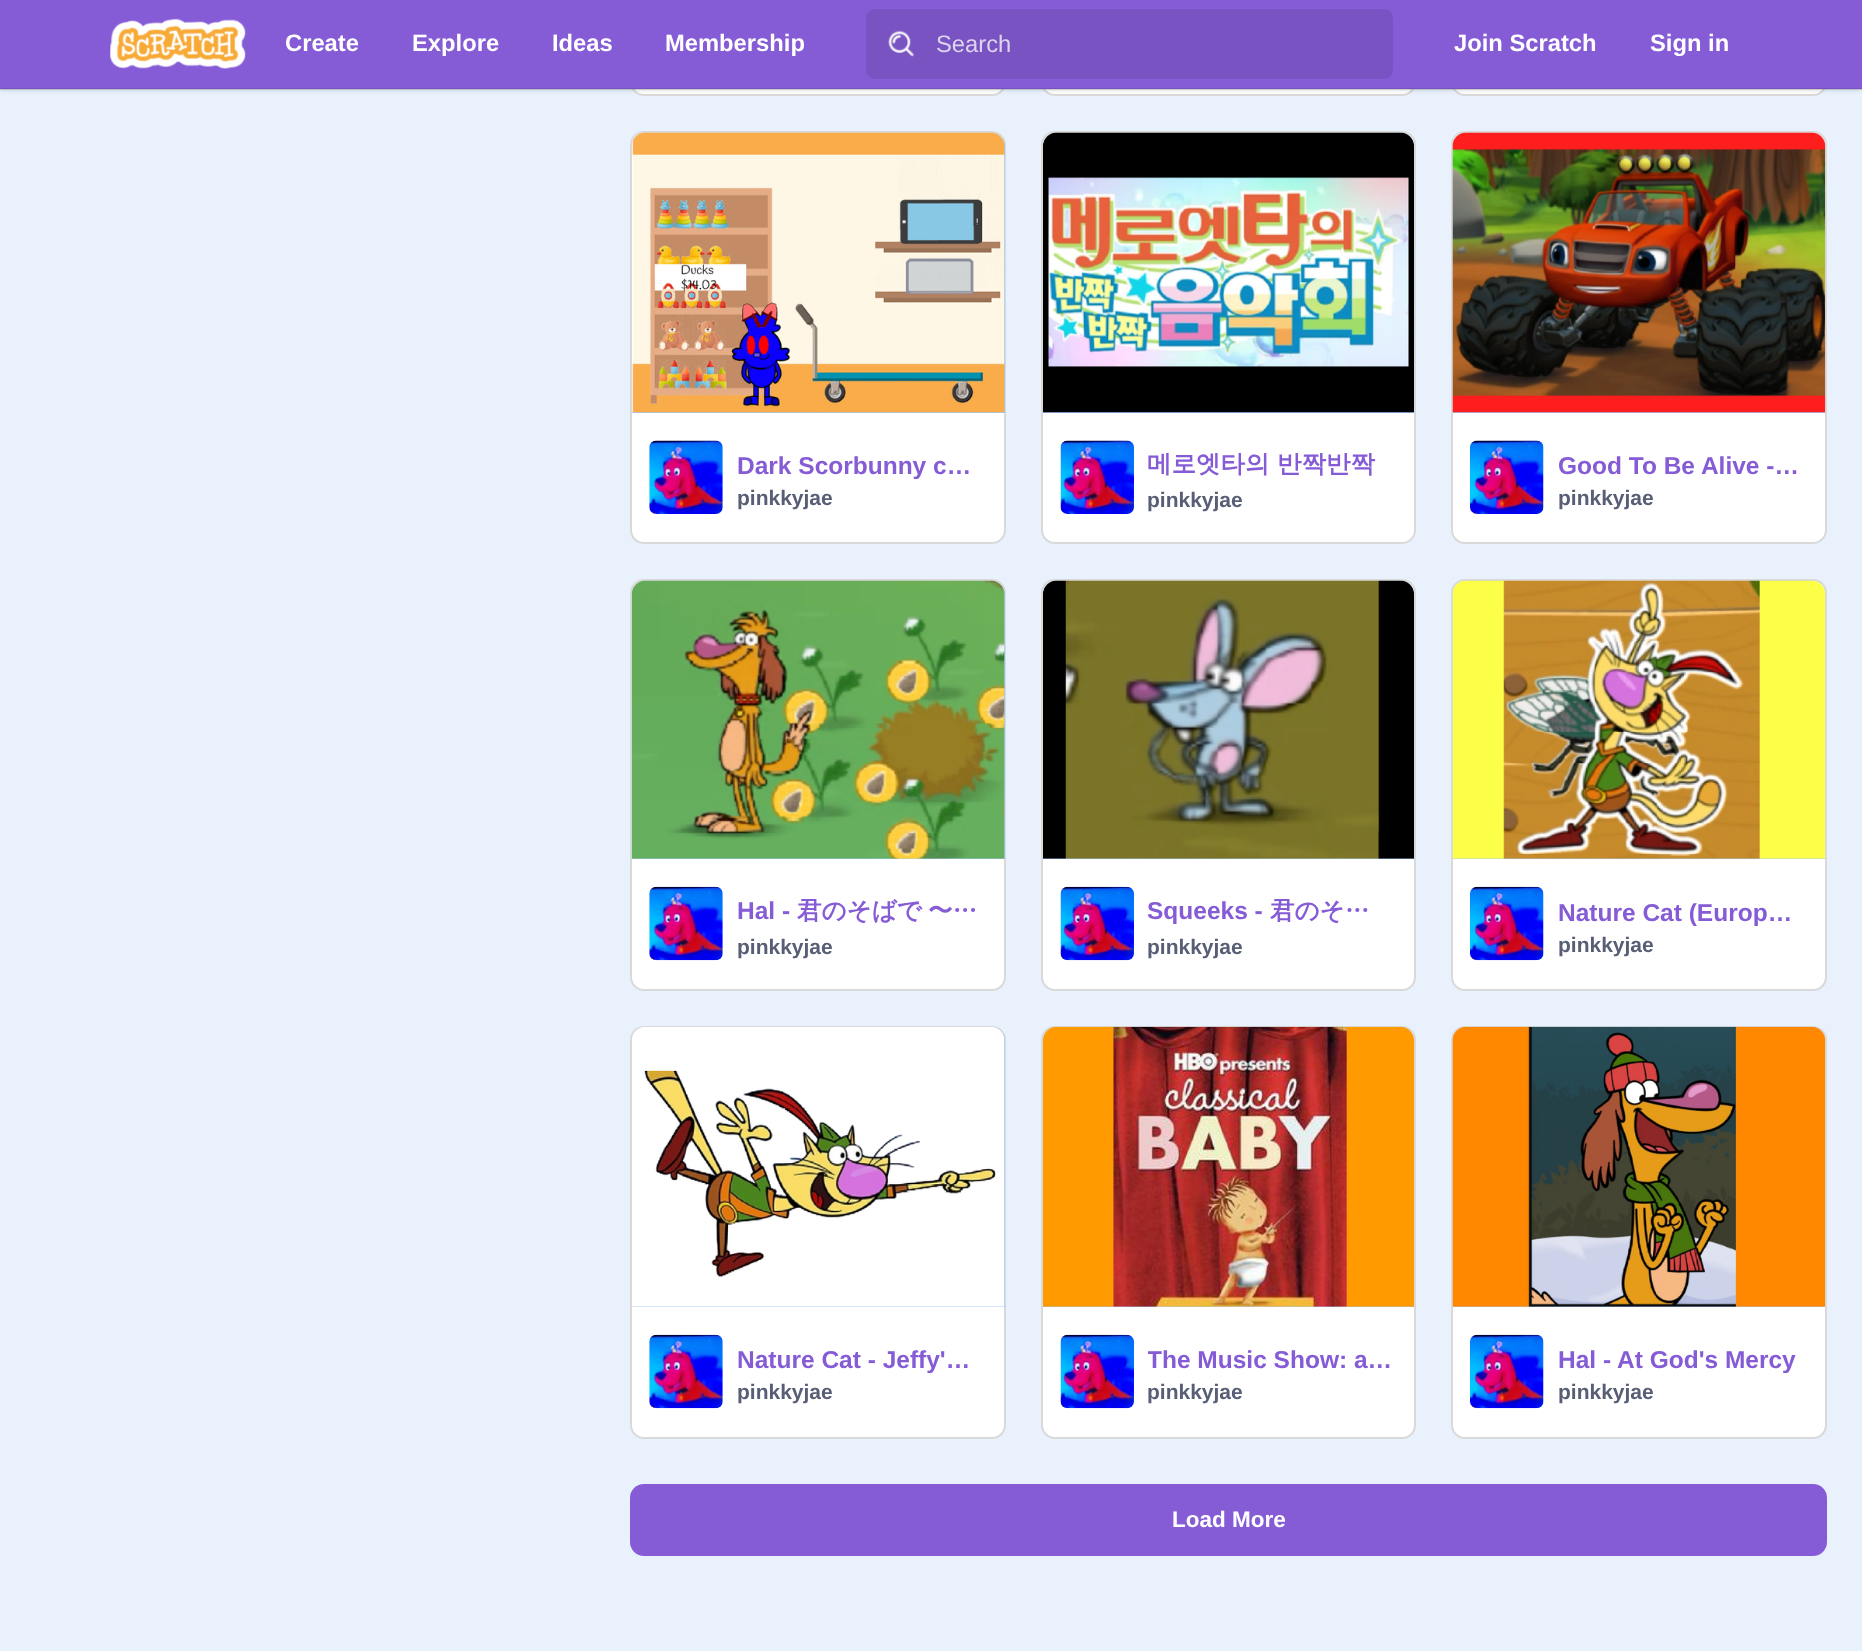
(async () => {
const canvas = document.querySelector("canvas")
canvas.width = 1862
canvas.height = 1651
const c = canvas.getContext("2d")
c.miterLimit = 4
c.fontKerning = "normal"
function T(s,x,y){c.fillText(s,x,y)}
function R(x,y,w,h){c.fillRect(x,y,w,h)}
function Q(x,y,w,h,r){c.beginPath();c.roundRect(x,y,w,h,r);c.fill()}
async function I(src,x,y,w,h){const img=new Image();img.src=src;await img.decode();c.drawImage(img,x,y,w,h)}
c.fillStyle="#e9f1fc"
R(0,0,1862,1651)
c.fillStyle="#fff"
c.beginPath()
c.roundRect(631,-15,374,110,13)
c.fill()
c.strokeStyle="#d9d9d9"
c.lineWidth=2
c.stroke()
c.beginPath()
c.roundRect(1042,-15,373,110,13)
c.fill()
c.stroke()
c.beginPath()
c.roundRect(1452,-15,374,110,13)
c.fill()
c.stroke()
c.fillStyle="#00000040"
c.filter="blur(2.5px)"
c.beginPath()
c.rect(0,0,1862,89)
c.fill()
c.filter="none"
c.fillStyle="#855cd6"
R(0,0,1862,89)
c.fillStyle="#0000001a"
R(0,88,1862,2)
await I("1.png",110,18,136,51)
c.font="bold 23.75px Liberation Sans"
c.fillStyle="#fff"
T("Create",285,51)
T("Explore",412,51)
T("Ideas",552,51)
T("Membership",665,51)
c.fillStyle="#7853c1"
Q(866,9,527,70,9)
await I("2.png",888,30,27,27)
c.font="23.75px Liberation Sans"
c.fillStyle="#ddd4f0"
T("Search",936,52)
c.font="bold 23.75px Liberation Sans"
c.fillStyle="#fff"
T("Join Scratch",1454,51)
T("Sign in",1650,51)
c.beginPath()
c.roundRect(631,132,374,411,13)
c.fill()
c.stroke()
c.fillStyle="#a0c6fc"
c.beginPath()
c.roundRect(632,133,373,280,[14,14,0,0])
c.fill()
await I("3.png",632,132,373,281)
await I("4.png",649,440,74,74)
c.font="bold 24.5px Liberation Sans"
c.fillStyle="#855cd6"
T("Dark Scorbunny c…",737,474)
c.font="bold 21px Liberation Sans"
c.fillStyle="#575e75"
T("pinkkyjae",737,505)
c.fillStyle="#fff"
c.beginPath()
c.roundRect(1042,132,373,411,13)
c.fill()
c.stroke()
c.fillStyle="#a0c6fc"
c.beginPath()
c.roundRect(1043,133,371,280,[14,14,0,0])
c.fill()
await I("5.png",1043,132,371,281)
await I("6.png",1060,440,74,74)
c.font="bold 24.5px WenQuanYi Zen Hei"
c.fillStyle="#855cd6"
T("메로엣타의",1147,472)
T("반짝반짝",1277,472)
c.font="bold 21px Liberation Sans"
c.fillStyle="#575e75"
T("pinkkyjae",1147,507)
c.fillStyle="#fff"
c.beginPath()
c.roundRect(1452,132,374,411,13)
c.fill()
c.stroke()
c.fillStyle="#a0c6fc"
c.beginPath()
c.roundRect(1453,133,372,280,[14,14,0,0])
c.fill()
await I("7.png",1452,132,374,281)
await I("8.png",1470,440,74,74)
c.font="bold 24.5px Liberation Sans"
c.fillStyle="#855cd6"
T("Good To Be Alive -…",1558,474)
c.font="bold 21px Liberation Sans"
c.fillStyle="#575e75"
T("pinkkyjae",1558,505)
c.fillStyle="#fff"
c.beginPath()
c.roundRect(631,580,374,410,13)
c.fill()
c.stroke()
c.fillStyle="#a0c6fc"
c.beginPath()
c.roundRect(632,581,373,278,[14,14,0,0])
c.fill()
await I("9.png",631,580,374,279)
await I("10.png",649,886,74,75)
c.font="bold 24.5px Liberation Sans"
c.fillStyle="#855cd6"
T("Hal -",737,919)
c.font="bold 24.5px WenQuanYi Zen Hei"
T("君のそばで",797,919)
T("〜…",928,919)
c.font="bold 21px Liberation Sans"
c.fillStyle="#575e75"
T("pinkkyjae",737,954)
c.fillStyle="#fff"
c.beginPath()
c.roundRect(1042,580,373,410,13)
c.fill()
c.stroke()
c.fillStyle="#a0c6fc"
c.beginPath()
c.roundRect(1043,581,371,278,[14,14,0,0])
c.fill()
await I("11.png",1043,580,371,279)
await I("12.png",1060,886,74,75)
c.font="bold 24.5px Liberation Sans"
c.fillStyle="#855cd6"
T("Squeeks -",1147,919)
c.font="bold 24.5px WenQuanYi Zen Hei"
T("君のそ…",1270,919)
c.font="bold 21px Liberation Sans"
c.fillStyle="#575e75"
T("pinkkyjae",1147,954)
c.fillStyle="#fff"
c.beginPath()
c.roundRect(1452,580,374,410,13)
c.fill()
c.stroke()
c.fillStyle="#a0c6fc"
c.beginPath()
c.roundRect(1453,581,372,278,[14,14,0,0])
c.fill()
await I("13.png",1452,580,374,279)
await I("14.png",1470,886,74,75)
c.save()
c.beginPath()
c.rect(1558,898,246,28)
c.clip()
c.font="bold 24.5px Liberation Sans"
c.fillStyle="#855cd6"
T("Nature Cat (Europ…",1558,921)
c.restore()
c.fillStyle="#575e75"
T("pinkkyjae",1558,952)
c.fillStyle="#fff"
c.beginPath()
c.roundRect(631,1027,374,411,13)
c.fill()
c.stroke()
c.fillStyle="#a0c6fc"
c.beginPath()
c.roundRect(632,1027,373,280,[14,14,0,0])
c.fill()
await I("15.png",632,1027,373,280)
await I("10.png",649,1334,74,75)
c.font="bold 24.5px Liberation Sans"
c.fillStyle="#855cd6"
T("Nature Cat - Jeffy'…",737,1368)
c.font="bold 21px Liberation Sans"
c.fillStyle="#575e75"
T("pinkkyjae",737,1399)
c.fillStyle="#fff"
c.beginPath()
c.roundRect(1042,1027,373,411,13)
c.fill()
c.stroke()
c.fillStyle="#a0c6fc"
c.beginPath()
c.roundRect(1043,1027,371,280,[14,14,0,0])
c.fill()
await I("16.png",1043,1026,371,281)
await I("12.png",1060,1334,74,75)
c.save()
c.beginPath()
c.rect(1148,1346,245,28)
c.clip()
c.font="bold 24.5px Liberation Sans"
c.fillStyle="#855cd6"
T("The Music Show: a…",1147,1368)
c.restore()
c.fillStyle="#575e75"
T("pinkkyjae",1147,1399)
c.fillStyle="#fff"
c.beginPath()
c.roundRect(1452,1027,374,411,13)
c.fill()
c.stroke()
c.fillStyle="#a0c6fc"
c.beginPath()
c.roundRect(1453,1027,372,280,[14,14,0,0])
c.fill()
await I("17.png",1452,1026,374,281)
await I("14.png",1470,1334,74,75)
c.font="bold 24.5px Liberation Sans"
c.fillStyle="#855cd6"
T("Hal - At God's Mercy",1558,1368)
c.font="bold 21px Liberation Sans"
c.fillStyle="#575e75"
T("pinkkyjae",1558,1399)
c.fillStyle="#855cd6"
Q(630,1484,1197,72,14)
c.font="bold 22.5px Liberation Sans"
c.fillStyle="#fff"
T("Load More",1172,1527)
})()
